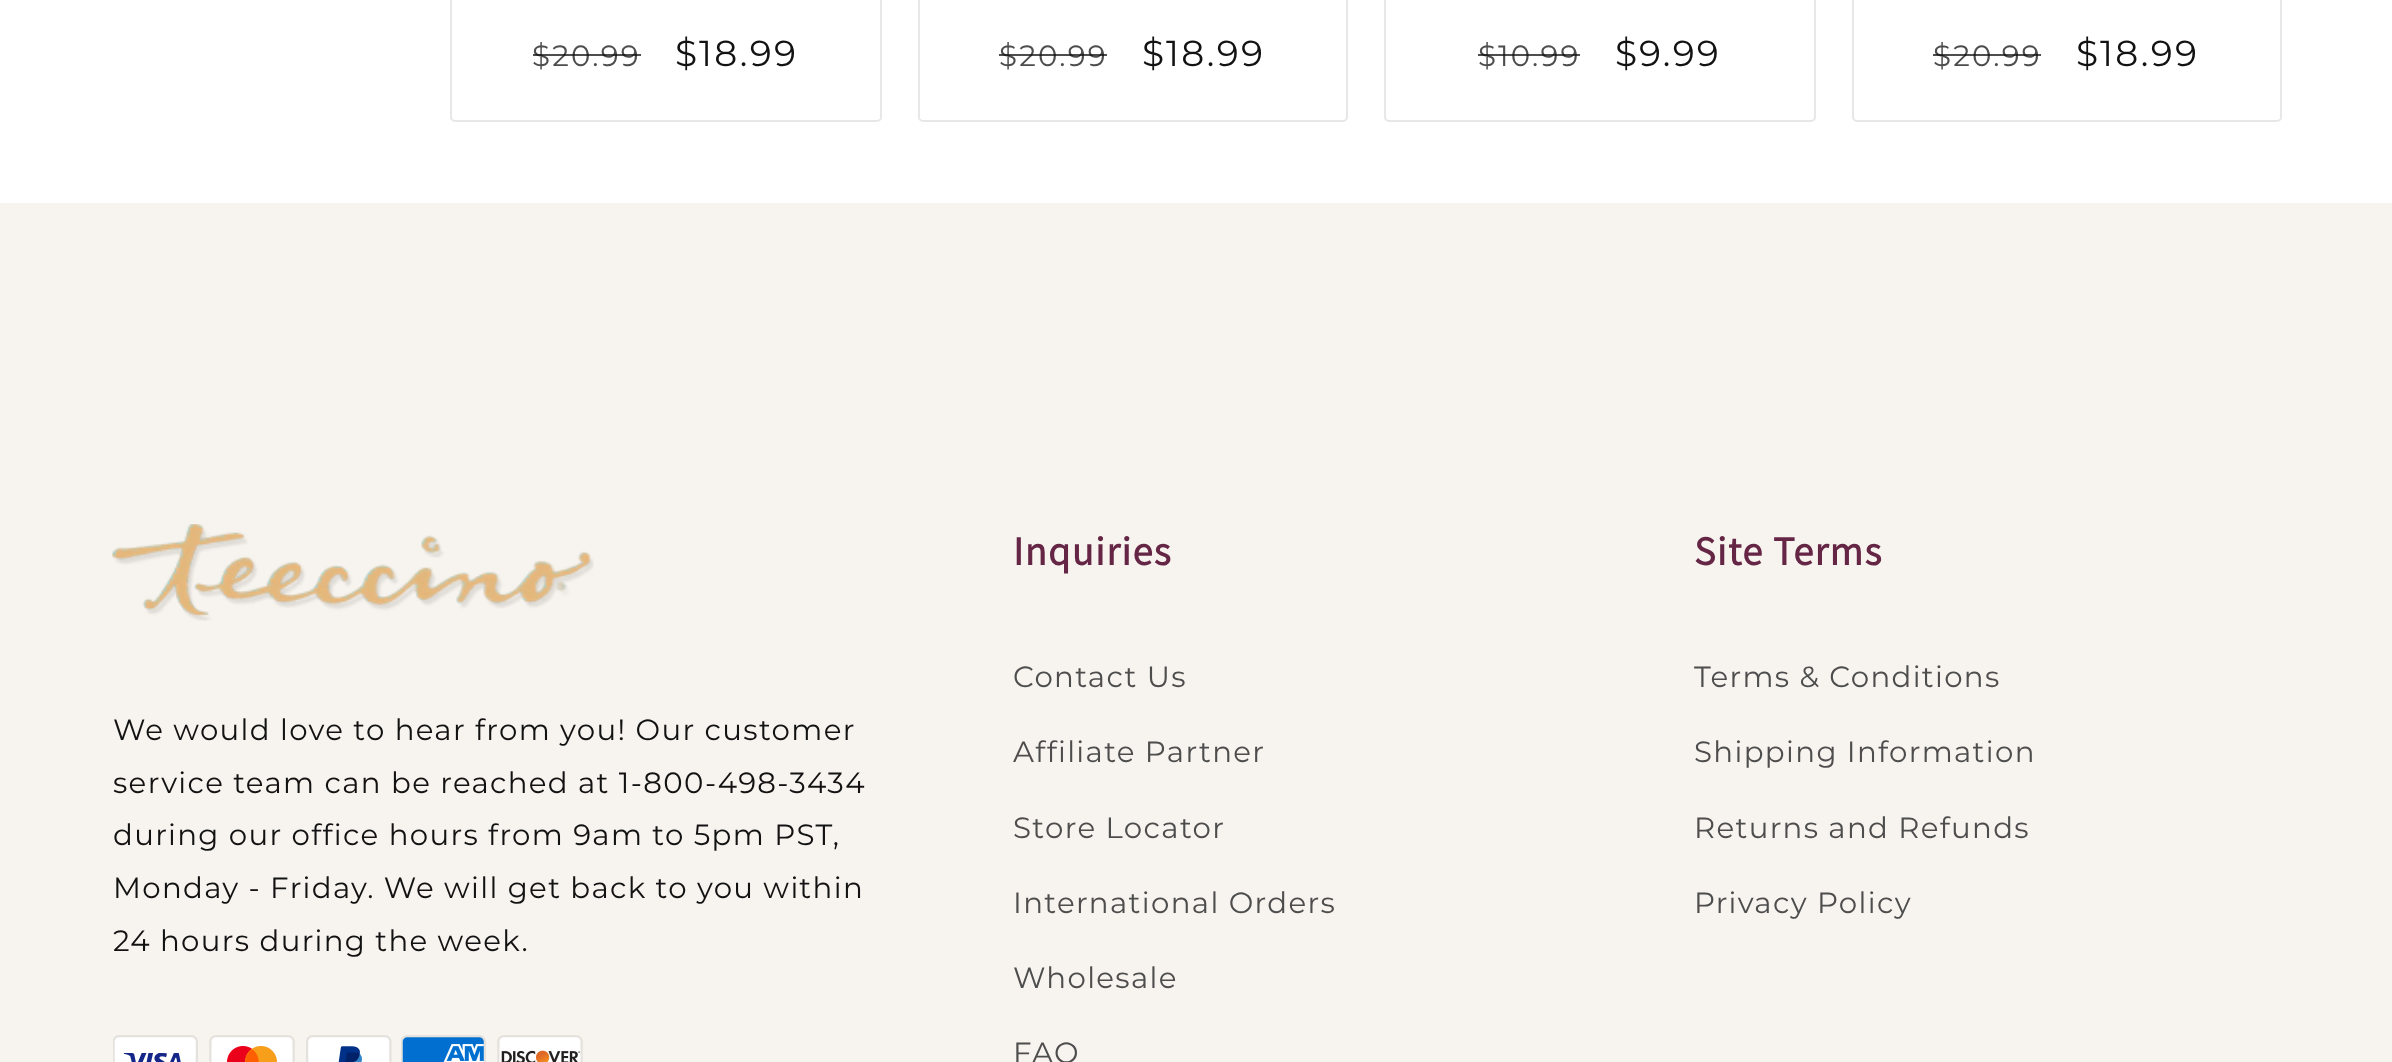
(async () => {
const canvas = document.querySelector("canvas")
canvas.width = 2392
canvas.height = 1062
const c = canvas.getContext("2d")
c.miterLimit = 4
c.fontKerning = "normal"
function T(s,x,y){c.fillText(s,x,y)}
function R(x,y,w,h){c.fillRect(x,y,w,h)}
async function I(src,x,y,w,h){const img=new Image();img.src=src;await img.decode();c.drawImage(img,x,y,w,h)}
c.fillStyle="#fff"
R(0,0,2392,1062)
c.beginPath()
c.roundRect(451,-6,430,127,4)
c.strokeStyle="#e7e7e7"
c.lineWidth=2
c.stroke()
c.letterSpacing="2.25px"
c.font="29.25px Montserrat"
c.fillStyle="#4d4d4d"
T("$20.99",532,66)
c.fillStyle="#121212bf"
R(533,54,108,2)
c.font="36px Montserrat"
c.fillStyle="#121212"
T("$18.99",675,66)
c.beginPath()
c.roundRect(919,-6,428,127,4)
c.stroke()
c.font="29.25px Montserrat"
c.fillStyle="#4d4d4d"
T("$20.99",999,66)
c.fillStyle="#121212bf"
R(999,54,108,2)
c.font="36px Montserrat"
c.fillStyle="#121212"
T("$18.99",1142,66)
c.beginPath()
c.roundRect(1385,-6,430,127,4)
c.stroke()
c.font="29.25px Montserrat"
c.fillStyle="#4d4d4d"
T("$10.99",1478,66)
c.fillStyle="#121212bf"
R(1478,54,102,2)
c.font="36px Montserrat"
c.fillStyle="#121212"
T("$9.99",1615,66)
c.beginPath()
c.roundRect(1853,-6,428,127,4)
c.stroke()
c.font="29.25px Montserrat"
c.fillStyle="#4d4d4d"
T("$20.99",1933,66)
c.fillStyle="#121212bf"
R(1933,54,108,2)
c.font="36px Montserrat"
c.fillStyle="#121212"
T("$18.99",2076,66)
c.fillStyle="#f7f4ef"
R(0,203,2392,859)
await I("1.png",112,524,482,97)
c.letterSpacing="1.35px"
c.font="29.25px Montserrat"
c.fillStyle="#121212"
T("We would love to hear from you! Our customer",113,740)
T("service team can be reached at 1-800-498-3434",113,793)
T("during our office hours from 9am to 5pm PST,",113,845)
T("Monday - Friday. We will get back to you within",113,898)
T("24 hours during the week.",113,951)
await I("2.png",113,1035,85,27)
await I("3.png",209,1035,86,27)
await I("4.png",306,1035,86,27)
await I("5.png",401,1035,85,27)
await I("6.png",497,1035,86,27)
c.font="bold 40.5px Assistant"
c.fillStyle="#652545"
T("Inquiries",1013,565)
c.font="29.25px Montserrat"
c.fillStyle="#4d4d4d"
T("Contact Us",1013,687)
T("Affiliate Partner",1013,762)
T("Store Locator",1013,838)
T("International Orders",1013,913)
T("Wholesale",1013,988)
T("FAQ",1013,1063)
c.font="bold 40.5px Assistant"
c.fillStyle="#652545"
T("Site Terms",1694,565)
c.font="29.25px Montserrat"
c.fillStyle="#4d4d4d"
T("Terms & Conditions",1694,687)
T("Shipping Information",1694,762)
T("Returns and Refunds",1694,838)
T("Privacy Policy",1694,913)
})()
